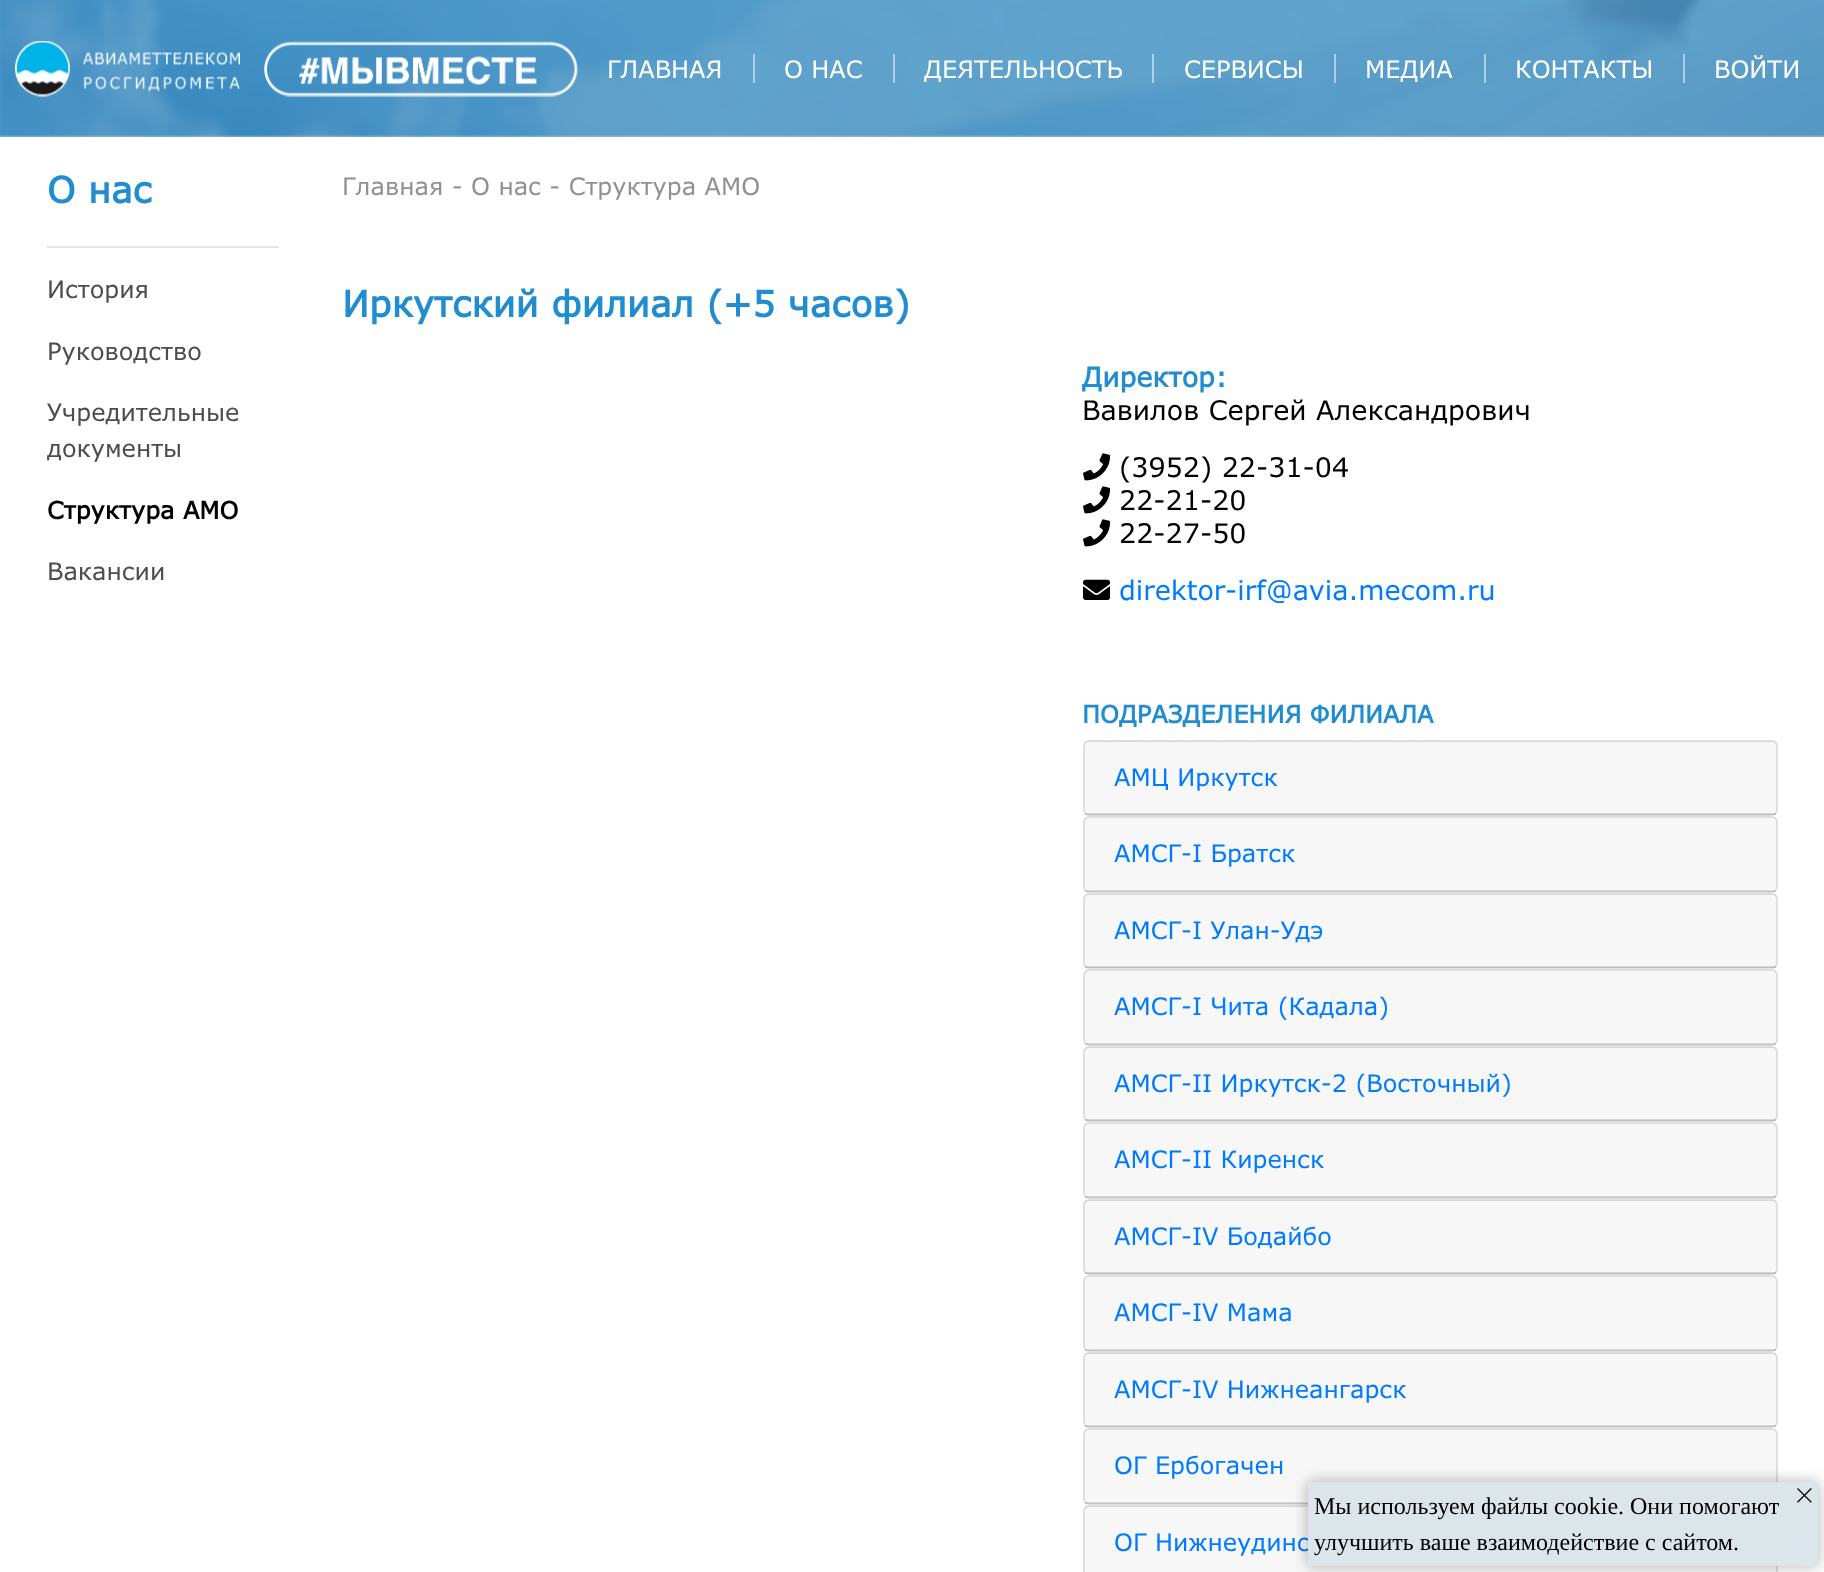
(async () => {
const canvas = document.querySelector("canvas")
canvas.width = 1824
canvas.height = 1572
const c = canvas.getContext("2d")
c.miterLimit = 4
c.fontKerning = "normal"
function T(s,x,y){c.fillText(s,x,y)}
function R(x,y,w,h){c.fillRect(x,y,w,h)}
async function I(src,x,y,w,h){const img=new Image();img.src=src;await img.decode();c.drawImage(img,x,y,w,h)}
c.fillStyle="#fff"
R(0,0,1824,1572)
await I("1.png",0,0,1824,137)
await I("2.png",15,41,225,56)
await I("3.png",264,41,314,56)
c.font="24px Verdana"
T("ГЛАВНАЯ",607,78)
c.fillStyle="#afd1e5"
R(753,54,2,29)
c.fillStyle="#fff"
T("О НАС",784,78)
c.fillStyle="#afd0e5"
R(893,54,2,29)
c.fillStyle="#fff"
T("ДЕЯТЕЛЬНОСТЬ",924,78)
c.fillStyle="#ffffff80"
R(1152,54,2,29)
c.fillStyle="#fff"
T("СЕРВИСЫ",1184,78)
c.fillStyle="#ffffff80"
R(1334,54,2,29)
c.fillStyle="#fff"
T("МЕДИА",1365,78)
c.fillStyle="#adcfe4"
R(1484,54,2,29)
c.fillStyle="#fff"
T("КОНТАКТЫ",1515,78)
c.fillStyle="#aecee3"
R(1683,54,2,29)
c.fillStyle="#fff"
T("ВОЙТИ",1714,78)
c.font="bold 36px Verdana"
c.fillStyle="#218dd1"
T("О нас",47,203)
c.fillStyle="#e6e6e6"
R(47,246,232,2)
c.font="24px Verdana"
c.fillStyle="#4d4d4d"
T("История",47,298)
T("Руководство",47,360)
T("Учредительные",47,421)
T("документы",47,457)
c.font="bold 24px Verdana"
c.fillStyle="#000"
T("Структура АМО",47,519)
c.font="24px Verdana"
c.fillStyle="#4d4d4d"
T("Вакансии",47,580)
c.fillStyle="#919191"
T("Главная - О нас - Структура АМО",342,195)
c.font="bold 36px Verdana"
c.fillStyle="#218dd1"
T("Иркутский филиал (+5 часов)",342,317)
c.font="bold 27px Verdana"
T("Директор:",1082,387)
c.font="27px Verdana"
c.fillStyle="#000"
T("Вавилов Сергей Александрович",1082,420)
await I("4.png",1083,453,28,28)
T("(3952) 22-31-04",1119,477)
await I("4.png",1083,486,28,28)
T("22-21-20",1119,510)
await I("4.png",1083,519,28,28)
T("22-27-50",1119,543)
await I("5.png",1083,579,27,21)
c.fillStyle="#007bff"
T("direktor-irf@avia.mecom.ru",1119,600)
c.font="bold 24px Verdana"
c.fillStyle="#218dd1"
T("ПОДРАЗДЕЛЕНИЯ ФИЛИАЛА",1082,723)
c.beginPath()
c.roundRect(1084,741,693,74,5)
c.strokeStyle="#dfdfdf"
c.lineWidth=2
c.stroke()
c.fillStyle="#00000008"
R(1085,741,691,74)
c.fillStyle="#0000001f"
R(1085,813,691,2)
c.font="24px Verdana"
c.fillStyle="#007bff"
T("АМЦ Иркутск",1114,786)
c.beginPath()
c.roundRect(1084,817,693,75,5)
c.stroke()
c.fillStyle="#00000008"
R(1085,818,691,73)
c.fillStyle="#0000001f"
R(1085,890,691,2)
c.fillStyle="#007bff"
T("АМСГ-I Братск",1114,862)
c.beginPath()
c.roundRect(1084,894,693,74,5)
c.stroke()
c.fillStyle="#00000008"
R(1085,894,691,74)
c.fillStyle="#0000001f"
R(1085,966,691,2)
c.fillStyle="#007bff"
T("АМСГ-I Улан-Удэ",1114,939)
c.beginPath()
c.roundRect(1084,970,693,75,5)
c.stroke()
c.fillStyle="#00000008"
R(1085,971,691,73)
c.fillStyle="#0000001f"
R(1085,1043,691,2)
c.fillStyle="#007bff"
T("АМСГ-I Чита (Кадала)",1114,1015)
c.beginPath()
c.roundRect(1084,1047,693,74,5)
c.stroke()
c.fillStyle="#00000008"
R(1085,1047,691,74)
c.fillStyle="#0000001f"
R(1085,1119,691,2)
c.fillStyle="#007bff"
T("АМСГ-II Иркутск-2 (Восточный)",1114,1092)
c.beginPath()
c.roundRect(1084,1123,693,75,5)
c.stroke()
c.fillStyle="#00000008"
R(1085,1124,691,73)
c.fillStyle="#0000001f"
R(1085,1196,691,2)
c.fillStyle="#007bff"
T("АМСГ-II Киренск",1114,1168)
c.beginPath()
c.roundRect(1084,1200,693,74,5)
c.stroke()
c.fillStyle="#00000008"
R(1085,1200,691,74)
c.fillStyle="#0000001f"
R(1085,1272,691,2)
c.fillStyle="#007bff"
T("АМСГ-IV Бодайбо",1114,1245)
c.beginPath()
c.roundRect(1084,1276,693,75,5)
c.stroke()
c.fillStyle="#00000008"
R(1085,1277,691,73)
c.fillStyle="#0000001f"
R(1085,1349,691,2)
c.fillStyle="#007bff"
T("АМСГ-IV Мама",1114,1321)
c.beginPath()
c.roundRect(1084,1353,693,74,5)
c.stroke()
c.fillStyle="#00000008"
R(1085,1353,691,74)
c.fillStyle="#0000001f"
R(1085,1425,691,2)
c.fillStyle="#007bff"
T("АМСГ-IV Нижнеангарск",1114,1398)
c.beginPath()
c.roundRect(1084,1429,693,75,5)
c.stroke()
c.fillStyle="#00000008"
R(1085,1430,691,73)
c.fillStyle="#0000001f"
R(1085,1502,223,2)
c.fillStyle="#007bff"
T("ОГ Ербогачен",1114,1474)
c.beginPath()
c.roundRect(1084,1506,693,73,5)
c.stroke()
c.fillStyle="#00000008"
R(1085,1506,691,66)
c.fillStyle="#007bff"
T("ОГ Нижнеудинс",1114,1551)
c.fillStyle="#0000004d"
c.filter="blur(7.5px)"
c.beginPath()
c.rect(1308,1482,510,84)
c.fill()
c.filter="none"
c.fillStyle="#dce5ea"
R(1308,1482,510,84)
await I("6.png",1797,1488,15,15)
c.font="24px Liberation Serif"
c.fillStyle="#000"
T("Мы используем файлы cookie. Они помогают",1314,1514)
T("улучшить ваше взаимодействие с сайтом.",1314,1550)
})()
